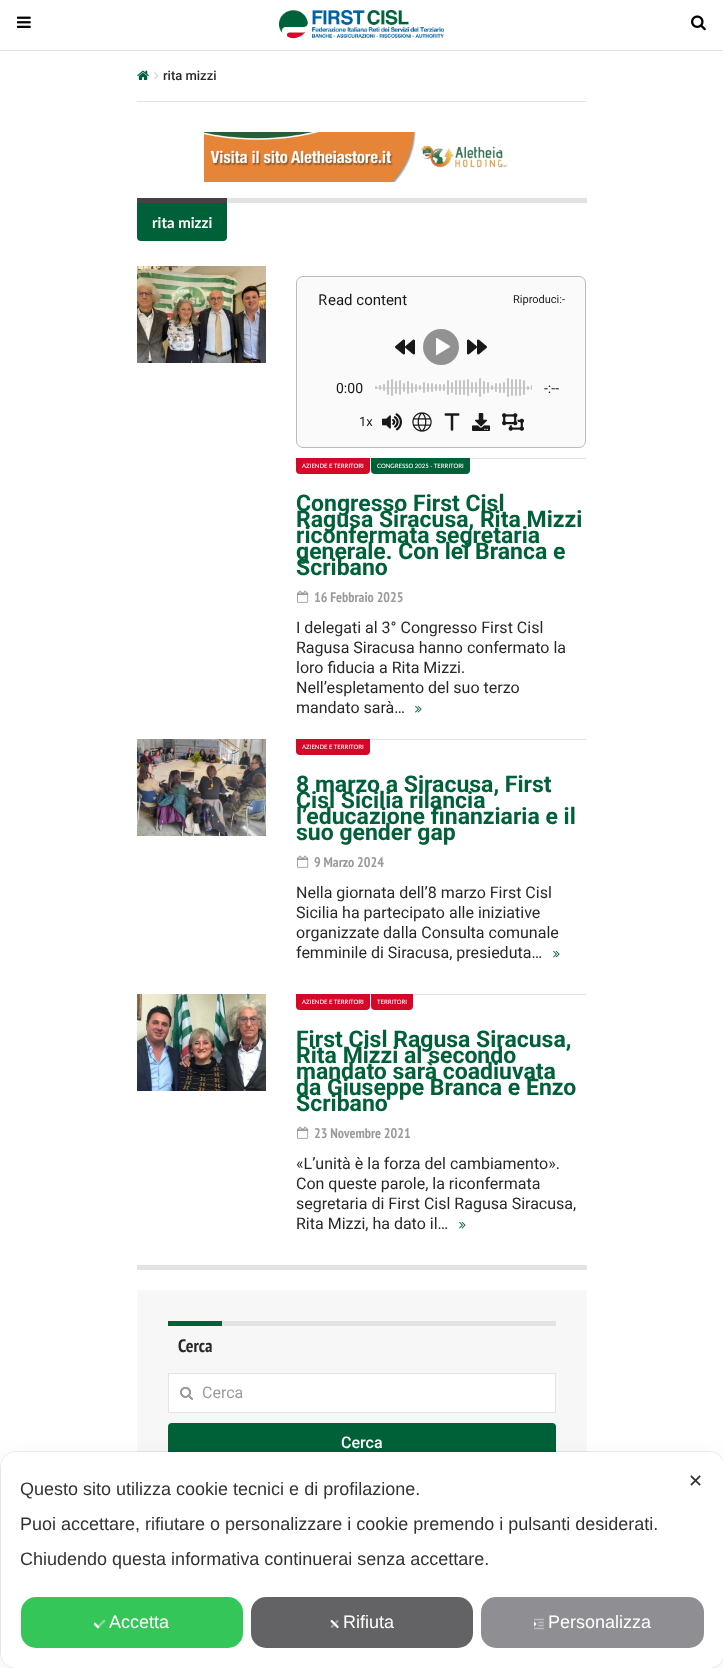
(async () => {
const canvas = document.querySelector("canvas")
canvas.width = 723
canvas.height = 1668
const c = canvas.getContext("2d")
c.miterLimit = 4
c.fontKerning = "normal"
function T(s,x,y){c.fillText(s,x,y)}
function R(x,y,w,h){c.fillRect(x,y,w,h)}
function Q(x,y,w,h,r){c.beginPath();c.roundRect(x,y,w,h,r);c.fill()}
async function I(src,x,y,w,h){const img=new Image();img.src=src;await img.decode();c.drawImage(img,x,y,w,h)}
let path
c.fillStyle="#fff"
R(0,0,723,1668)
c.fillStyle="#e3e3e3"
R(0,50,723,1)
await I("1.png",17,16,14,12)
await I("2.png",279,10,165,29)
await I("3.png",691,15,15,16)
R(137,101,450,1)
await I("4.png",137,70,12,10)
await I("5.png",154,72,5,8)
c.font="500 13px Roboto"
c.fillStyle="#282828"
T("rita mizzi",163,80)
await I("6.png",204,132,304,50)
c.fillStyle="#e3e3e3"
R(227,198,360,5)
c.fillStyle="#006139"
c.beginPath()
c.roundRect(137,198,90,43,[0,0,4,4])
c.fill()
c.fillStyle="#434343"
R(137,198,90,5)
c.font="bold 15px Lato"
c.fillStyle="#fff"
T("rita mizzi",152,228)
await I("7.png",137,266,129,97)
c.fillStyle="#fafafa"
c.beginPath()
c.roundRect(296.5,276.5,289,171,6.5)
c.fill()
c.strokeStyle="#bbb"
c.stroke()
c.font="15px Noto Sans"
c.fillStyle="#181818"
T("R",318,305)
c.font="15px Roboto"
T("ead content",328,305)
c.font="11px Roboto"
T("Riproduci:-",513,303)
await I("8.png",395,339,20,16)
c.fillStyle="#929292"
c.beginPath()
c.arc(441,347,18,0,7)
c.fill()
c.fillStyle="#fff"
path = new Path2D("M450 347l-14 8.5v-17.5h1l13 8z")
c.fill(path)
await I("9.png",467,339,20,16)
c.font="14px Roboto"
c.fillStyle="#181818"
T("0:00",336,393)
c.fillStyle="#e4e3e3"
R(375,387,157,2)
c.fillStyle="#c4c4c4"
Q(375,386,2,3,1)
Q(379,385,2,5,1)
Q(383,384,2,7,1)
Q(387,380,2,15,1)
Q(391,379,2,17,1)
Q(395,381,2,13,1)
Q(399,380,2,15,1)
Q(403,383,2,9,1)
Q(407,381,2,13,1)
Q(411,383,2,10,1)
Q(415,384,2,8,1)
Q(419,385,2,5,1)
Q(423,382,2,11,1)
Q(427,383,2,9,1)
Q(431,383,2,9,1)
Q(435,384,2,7,1)
Q(439,384,2,7,1)
Q(443,384,2,7,1)
Q(447,380,2,15,1)
Q(451,382,2,11,1)
Q(455,380,2,15,1)
Q(459,380,2,15,1)
Q(463,380,2,15,1)
Q(467,379,2,17,1)
Q(471,382,2,11,1)
Q(475,382,2,11,1)
Q(479,378,2,19,1)
Q(483,381,2,13,1)
Q(487,382,2,11,1)
Q(491,385,2,5,1)
Q(495,383,2,9,1)
Q(499,383,2,10,1)
Q(503,382,2,11,1)
Q(507,378,2,19,1)
Q(511,379,2,17,1)
Q(515,379,2,17,1)
Q(519,379,2,17,1)
Q(523,380,2,15,1)
Q(527,386,2,4,1)
c.beginPath()
c.roundRect(531,385,1,5,[1,0,0,1])
c.fill()
c.fillStyle="#181818"
T("-:--",544,393)
c.font="13px Roboto"
T("1x",359,426)
await I("10.png",382,413,20,18)
await I("11.png",412,412,20,20)
await I("12.png",444,413,16,18)
await I("13.png",472,413,18,18)
await I("14.png",502,413,22,18)
c.fillStyle="#e3e3e3"
R(370,458,216,1)
c.fillStyle="#d60829"
c.beginPath()
c.roundRect(296,458,74,16,[0,0,4,4])
c.fill()
c.font="500 6px Lato"
c.fillStyle="#fff"
T("AZIENDE E TERRITORI",302,468)
c.fillStyle="#006139"
c.beginPath()
c.roundRect(371,458,99,16,[0,0,4,4])
c.fill()
c.fillStyle="#fff"
T("CONGRESSO 2025 - TERRITORI",377,468)
c.font="bold 23px Roboto"
c.fillStyle="#006139"
T("Congresso First Cisl",296,511)
T("Ragusa Siracusa, Rita Mizzi",296,527)
T("riconfermata segretaria",296,543)
T("generale. Con lei Branca e",296,559)
T("Scribano",296,575)
await I("15.png",297,590,12,13)
c.font="bold 14px PT Sans Narrow"
c.fillStyle="#9b9b9b"
T("16 Febbraio 2025",314,602)
c.font="16px Roboto"
c.fillStyle="#282828"
T("I delegati al 3° Congresso First Cisl",296,633)
T("Ragusa Siracusa hanno confermato la",296,653)
T("loro fiducia a Rita Mizzi.",296,673)
T("Nell’espletamento del suo terzo",296,693)
T("mandato sarà…",296,713)
await I("16.png",415,705,7,8)
await I("17.png",137,739,129,97)
c.fillStyle="#e3e3e3"
R(370,739,216,1)
c.fillStyle="#d60829"
c.beginPath()
c.roundRect(296,739,74,16,[0,0,4,4])
c.fill()
c.font="500 6px Lato"
c.fillStyle="#fff"
T("AZIENDE E TERRITORI",302,749)
c.font="bold 23px Roboto"
c.fillStyle="#006139"
T("8 marzo a Siracusa, First",296,792)
T("Cisl Sicilia rilancia",296,808)
T("l’educazione finanziaria e il",296,824)
T("suo gender gap",296,840)
await I("15.png",297,855,12,13)
c.font="bold 14px PT Sans Narrow"
c.fillStyle="#9b9b9b"
T("9 Marzo 2024",314,867)
c.font="16px Roboto"
c.fillStyle="#282828"
T("Nella giornata dell’8 marzo First Cisl",296,898)
T("Sicilia ha partecipato alle iniziative",296,918)
T("organizzate dalla Consulta comunale",296,938)
T("femminile di Siracusa, presieduta…",296,958)
await I("16.png",553,950,7,8)
await I("18.png",137,994,129,97)
c.fillStyle="#e3e3e3"
R(370,994,216,1)
c.fillStyle="#d60829"
c.beginPath()
c.roundRect(296,994,74,16,[0,0,4,4])
c.fill()
c.font="500 6px Lato"
c.fillStyle="#fff"
T("AZIENDE E TERRITORI",302,1004)
c.fillStyle="#d60829"
c.beginPath()
c.roundRect(371,994,42,16,[0,0,4,4])
c.fill()
c.fillStyle="#fff"
T("TERRITORI",377,1004)
c.font="bold 23px Roboto"
c.fillStyle="#006139"
T("First Cisl Ragusa Siracusa,",296,1047)
T("Rita Mizzi al secondo",296,1063)
T("mandato sarà coadiuvata",296,1079)
T("da Giuseppe Branca e Enzo",296,1095)
T("Scribano",296,1111)
await I("15.png",297,1126,12,13)
c.font="bold 14px PT Sans Narrow"
c.fillStyle="#9b9b9b"
T("23 Novembre 2021",314,1138)
c.font="16px Roboto"
c.fillStyle="#282828"
T("«L’unità è la forza del cambiamento».",296,1169)
T("Con queste parole, la riconfermata",296,1189)
T("segretaria di First Cisl Ragusa Siracusa,",296,1209)
T("Rita Mizzi, ha dato il…",296,1229)
await I("16.png",459,1221,7,8)
c.fillStyle="#e3e3e3"
R(137,1265,450,5)
c.fillStyle="#f7f7f7"
R(138,1291,448,161)
c.strokeStyle="#f9f9f9"
c.strokeRect(137.5,1290.5,449,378)
c.fillStyle="#e3e3e3"
R(222,1321,334,5)
c.fillStyle="#006139"
R(168,1321,54,5)
c.font="bold 18px PT Sans Narrow"
c.fillStyle="#282828"
T("Cerca",178,1352)
c.fillStyle="#fff"
R(169,1374,386,38)
await I("19.png",180,1387,13,13)
c.strokeStyle="#e3e3e3"
c.strokeRect(168.5,1373.5,387,39)
c.font="16px Roboto"
c.fillStyle="#9b9b9b"
T("Cerca",202,1398)
c.fillStyle="#006139"
Q(168,1423,388,40,4)
c.font="500 16px Roboto"
c.fillStyle="#fff"
T("Cerca",341,1448)
c.beginPath()
c.roundRect(.5,1451.5,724,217,15.5)
c.strokeStyle="#00000014"
c.stroke()
c.fillStyle="#0000000d"
c.filter="blur(12px)"
c.beginPath()
c.roundRect(1,1458,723,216,15)
c.fill()
c.filter="none"
c.fillStyle="#fff"
Q(1,1452,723,216,15)
c.font="18px Liberation Sans"
c.fillStyle="#333"
T("Questo sito utilizza cookie tecnici e di profilazione.",20,1495)
T("Puoi accettare, rifiutare o personalizzare i cookie premendo i pulsanti desiderati.",20,1530)
T("Chiudendo questa informativa continuerai senza accettare.",20,1565)
c.fillStyle="#34c659"
Q(21,1597,222,51,15)
await I("20.png",94,1619,12,10)
c.fillStyle="#fff"
T("Accetta",109,1628)
c.fillStyle="#636366"
Q(251,1597,222,51,15)
await I("21.png",330,1619,9,10)
c.fillStyle="#fff"
T("Rifiuta",343,1628)
c.fillStyle="#8e8e93"
Q(481,1597,223,51,15)
await I("22.png",534,1618,10,12)
c.fillStyle="#fff"
T("Personalizza",548,1628)
c.font="18px DejaVu Sans"
c.fillStyle="#333"
T("✕",688,1487)
})()
